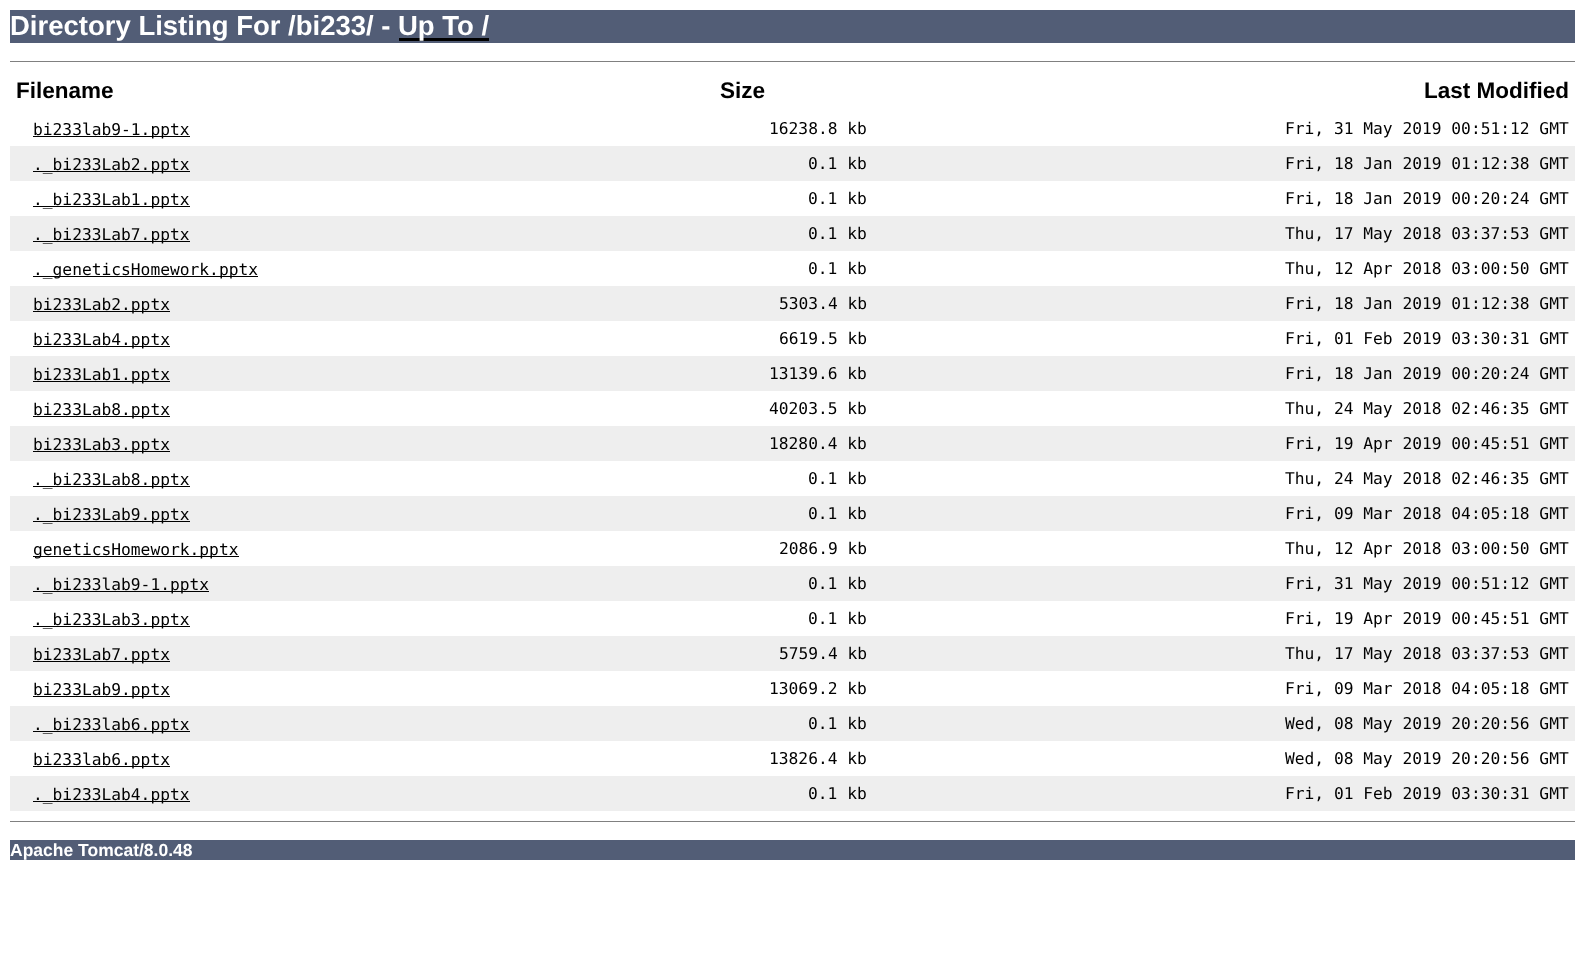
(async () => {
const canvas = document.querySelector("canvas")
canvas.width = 1585
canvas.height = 957
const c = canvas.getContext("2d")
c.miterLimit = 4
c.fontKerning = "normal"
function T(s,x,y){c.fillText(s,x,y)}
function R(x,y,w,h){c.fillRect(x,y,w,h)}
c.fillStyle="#fff"
R(0,0,1585,957)
c.fillStyle="#525d76"
R(10,10,1565,33)
c.font="bold 27.5px Liberation Sans"
c.fillStyle="#fff"
T("Directory Listing For /bi233/ -",10,35)
c.fillStyle="#000"
R(399,38,90,3)
c.fillStyle="#fff"
T("Up To /",398,35)
c.fillStyle="#808080"
R(10,61,1565,1)
c.font="bold 22.5px Liberation Sans"
c.fillStyle="#000"
T("Filename",16,98)
T("Size",720,98)
T("Last Modified",1424,98)
R(33,136,157,1)
c.font="16.25px DejaVu Sans Mono"
T("bi233lab9-1.pptx",33,135)
T("16238.8 kb",769,134)
T("Fri, 31 May 2019 00:51:12 GMT",1285,134)
c.fillStyle="#eee"
R(10,146,1565,35)
c.fillStyle="#000"
R(33,171,157,1)
T("._bi233Lab2.pptx",33,170)
T("0.1 kb",808,169)
T("Fri, 18 Jan 2019 01:12:38 GMT",1285,169)
R(33,206,157,1)
T("._bi233Lab1.pptx",33,205)
T("0.1 kb",808,204)
T("Fri, 18 Jan 2019 00:20:24 GMT",1285,204)
c.fillStyle="#eee"
R(10,216,1565,35)
c.fillStyle="#000"
R(33,241,157,1)
T("._bi233Lab7.pptx",33,240)
T("0.1 kb",808,239)
T("Thu, 17 May 2018 03:37:53 GMT",1285,239)
R(33,276,225,1)
T("._geneticsHomework.pptx",33,275)
T("0.1 kb",808,274)
T("Thu, 12 Apr 2018 03:00:50 GMT",1285,274)
c.fillStyle="#eee"
R(10,286,1565,35)
c.fillStyle="#000"
R(33,311,137,1)
T("bi233Lab2.pptx",33,310)
T("5303.4 kb",779,309)
T("Fri, 18 Jan 2019 01:12:38 GMT",1285,309)
R(33,346,137,1)
T("bi233Lab4.pptx",33,345)
T("6619.5 kb",779,344)
T("Fri, 01 Feb 2019 03:30:31 GMT",1285,344)
c.fillStyle="#eee"
R(10,356,1565,35)
c.fillStyle="#000"
R(33,381,137,1)
T("bi233Lab1.pptx",33,380)
T("13139.6 kb",769,379)
T("Fri, 18 Jan 2019 00:20:24 GMT",1285,379)
R(33,416,137,1)
T("bi233Lab8.pptx",33,415)
T("40203.5 kb",769,414)
T("Thu, 24 May 2018 02:46:35 GMT",1285,414)
c.fillStyle="#eee"
R(10,426,1565,35)
c.fillStyle="#000"
R(33,451,137,1)
T("bi233Lab3.pptx",33,450)
T("18280.4 kb",769,449)
T("Fri, 19 Apr 2019 00:45:51 GMT",1285,449)
R(33,486,157,1)
T("._bi233Lab8.pptx",33,485)
T("0.1 kb",808,484)
T("Thu, 24 May 2018 02:46:35 GMT",1285,484)
c.fillStyle="#eee"
R(10,496,1565,35)
c.fillStyle="#000"
R(33,521,157,1)
T("._bi233Lab9.pptx",33,520)
T("0.1 kb",808,519)
T("Fri, 09 Mar 2018 04:05:18 GMT",1285,519)
R(33,556,206,1)
T("geneticsHomework.pptx",33,555)
T("2086.9 kb",779,554)
T("Thu, 12 Apr 2018 03:00:50 GMT",1285,554)
c.fillStyle="#eee"
R(10,566,1565,35)
c.fillStyle="#000"
R(33,591,176,1)
T("._bi233lab9-1.pptx",33,590)
T("0.1 kb",808,589)
T("Fri, 31 May 2019 00:51:12 GMT",1285,589)
R(33,626,157,1)
T("._bi233Lab3.pptx",33,625)
T("0.1 kb",808,624)
T("Fri, 19 Apr 2019 00:45:51 GMT",1285,624)
c.fillStyle="#eee"
R(10,636,1565,35)
c.fillStyle="#000"
R(33,661,137,1)
T("bi233Lab7.pptx",33,660)
T("5759.4 kb",779,659)
T("Thu, 17 May 2018 03:37:53 GMT",1285,659)
R(33,696,137,1)
T("bi233Lab9.pptx",33,695)
T("13069.2 kb",769,694)
T("Fri, 09 Mar 2018 04:05:18 GMT",1285,694)
c.fillStyle="#eee"
R(10,706,1565,35)
c.fillStyle="#000"
R(33,731,157,1)
T("._bi233lab6.pptx",33,730)
T("0.1 kb",808,729)
T("Wed, 08 May 2019 20:20:56 GMT",1285,729)
R(33,766,137,1)
T("bi233lab6.pptx",33,765)
T("13826.4 kb",769,764)
T("Wed, 08 May 2019 20:20:56 GMT",1285,764)
c.fillStyle="#eee"
R(10,776,1565,35)
c.fillStyle="#000"
R(33,801,157,1)
T("._bi233Lab4.pptx",33,800)
T("0.1 kb",808,799)
T("Fri, 01 Feb 2019 03:30:31 GMT",1285,799)
c.fillStyle="#808080"
R(10,821,1565,1)
c.fillStyle="#525d76"
R(10,840,1565,20)
c.font="bold 17.5px Liberation Sans"
c.fillStyle="#fff"
T("Apache Tomcat/8.0.48",10,856)
})()
